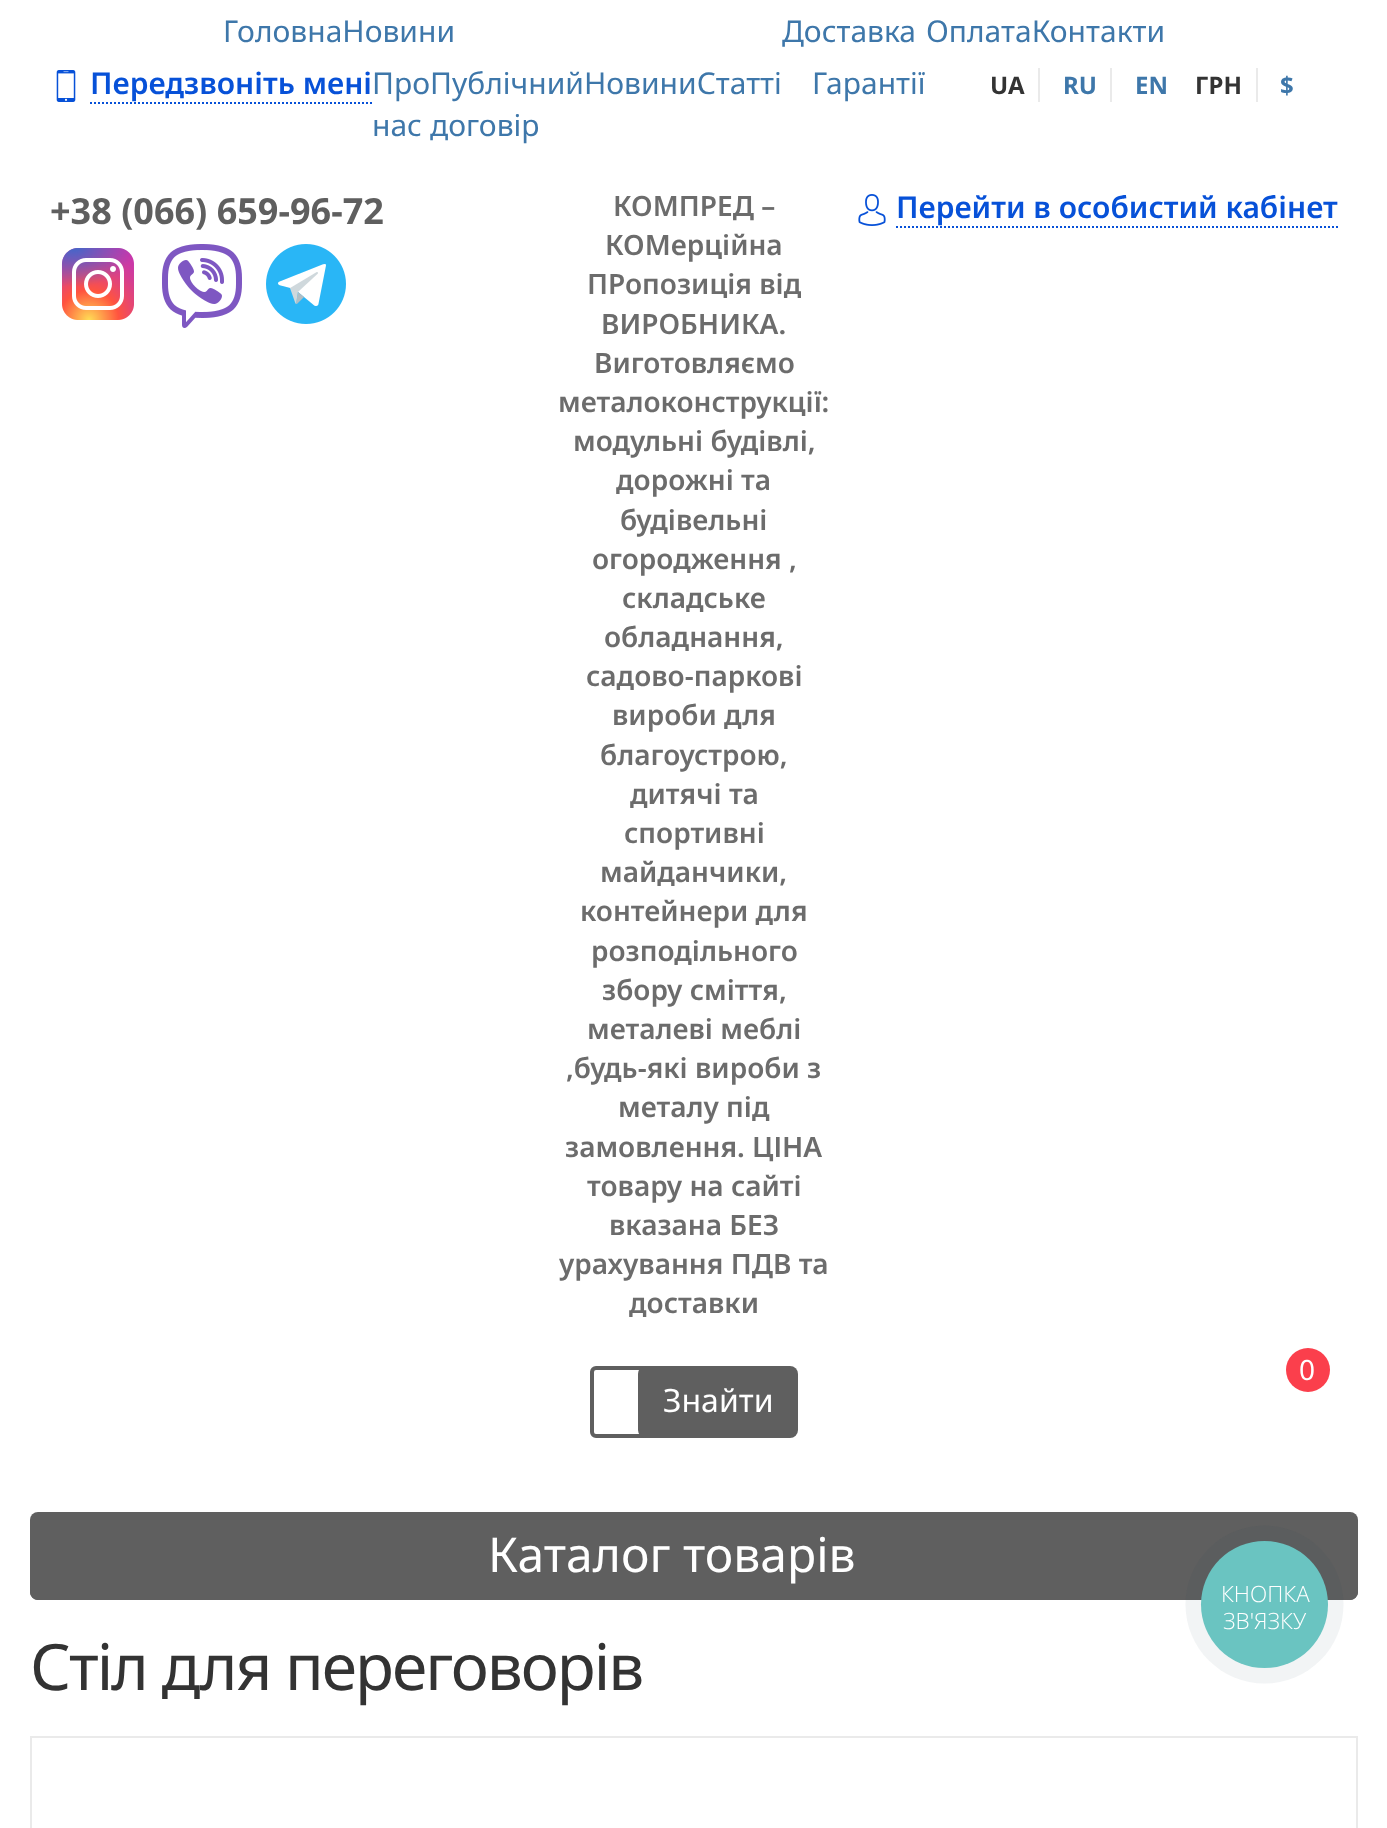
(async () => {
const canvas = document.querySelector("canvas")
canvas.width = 1387
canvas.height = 1828
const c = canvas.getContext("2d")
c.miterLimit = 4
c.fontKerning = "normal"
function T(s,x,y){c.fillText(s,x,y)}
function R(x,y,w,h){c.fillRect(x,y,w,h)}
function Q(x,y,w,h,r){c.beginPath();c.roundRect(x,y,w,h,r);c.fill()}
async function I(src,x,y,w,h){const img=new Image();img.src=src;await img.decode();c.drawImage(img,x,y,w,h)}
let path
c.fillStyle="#fff"
R(0,0,1387,1828)
c.font="30px Noto Sans"
c.fillStyle="#3e77aa"
T("ГоловнаНовини",223,42)
T("Доставка",782,42)
T("Гарантії",812,94)
T("ОплатаКонтакти",926,42)
T("ПроПублічнийНовиниСтатті",372,94)
T("нас",372,136)
T("договір",430,136)
await I("1.png",56,70,20,32)
c.font="600 30px Noto Sans"
c.fillStyle="#0751d8"
T("Передзвоніть мені",90,94)
path = new Path2D("M90 103h282")
c.strokeStyle="#0751d8"
c.lineWidth=2
c.setLineDash([2,2])
c.stroke(path)
c.font="bold 24px Noto Sans"
c.fillStyle="#333"
T("UA",990,94)
c.fillStyle="#eaeaea"
R(1038,68,2,34)
c.fillStyle="#3e77aa"
T("RU",1063,94)
c.fillStyle="#eaeaea"
R(1110,68,2,34)
c.fillStyle="#3e77aa"
T("EN",1135,94)
c.fillStyle="#333"
T("ГРН",1195,94)
c.fillStyle="#eaeaea"
R(1256,68,2,34)
c.fillStyle="#3e77aa"
T("$",1280,94)
c.font="bold 36px Noto Sans"
c.fillStyle="#5f5f5f"
T("+38 (066) 659-96-72",50,224)
await I("2.png",61,248,73,72)
await I("3.png",162,244,80,84)
await I("4.png",266,244,80,80)
c.font="600 28px Noto Sans"
c.fillStyle="#6c6c6c"
T("КОМПРЕД –",613,216)
T("КОМерційна",605,255)
T("ПРопозиція від",587,294)
T("ВИРОБНИКА.",601,334)
T("Виготовляємо",594,373)
T("металоконструкції:",558,412)
T("модульні будівлі,",573,451)
T("дорожні та",616,490)
T("будівельні",620,530)
T("огородження ,",592,569)
T("складське",622,608)
T("обладнання,",604,647)
T("садово-паркові",586,686)
T("вироби для",612,725)
T("благоустрою,",600,765)
T("дитячі та",630,804)
T("спортивні",624,843)
T("майданчики,",600,882)
T("контейнери для",580,921)
T("розподільного",591,961)
T("збору сміття,",602,1000)
T("металеві меблі",587,1039)
T(",будь-які вироби з",566,1078)
T("металу під",618,1117)
T("замовлення. ЦІНА",565,1157)
T("товару на сайті",587,1196)
T("вказана БЕЗ",609,1235)
T("урахування ПДВ та",559,1274)
T("доставки",629,1313)
await I("5.png",858,194,28,32)
c.font="600 30px Noto Sans"
c.fillStyle="#0751d8"
T("Перейти в особистий кабінет",896,218)
path = new Path2D("M896 227h442")
c.stroke(path)
c.fillStyle="#fb3f4c"
c.beginPath()
c.arc(1308,1370,22,0,7)
c.fill()
c.font="28px Noto Sans"
c.fillStyle="#fff"
T("0",1299,1380)
c.beginPath()
c.roundRect(592,1368,134,68,4)
c.strokeStyle="#5f5f5f"
c.lineWidth=4
c.setLineDash([])
c.stroke()
c.fillStyle="#5f5f5f"
Q(638,1366,160,72,8)
c.font="32px Noto Sans"
c.fillStyle="#fff"
T("Знайти",663,1412)
c.fillStyle="#5f5f5f"
Q(30,1512,1328,88,8)
path = new Path2D("M30 1586v6c0 4 4 8 8 8h1312c4 0 8-4 8-8v-6c0 4-4 8-8 8h-1312c-4 0-8-4-8-8z")
c.fill(path)
c.font="48px Noto Sans"
c.fillStyle="#fff"
T("Каталог товарів",488,1572)
c.letterSpacing="-2px"
c.font="64px Noto Sans"
c.fillStyle="#333"
T("Стіл для переговорів",30,1690)
c.strokeStyle="#eaeaea"
c.lineWidth=2
c.strokeRect(31,1737,1326,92)
c.fillStyle="#2a405d0f"
c.beginPath()
c.arc(1264.5,1604.5,79,0,7)
c.fill()
c.fillStyle="#6ac4c1"
c.beginPath()
c.arc(1264.5,1604.5,63.5,0,7)
c.fill()
c.letterSpacing="0px"
c.font="300 22.5px Open Sans"
c.fillStyle="#fff"
T("КНОПКА",1221,1602)
T("ЗВ'ЯЗКУ",1223,1629)
})()
